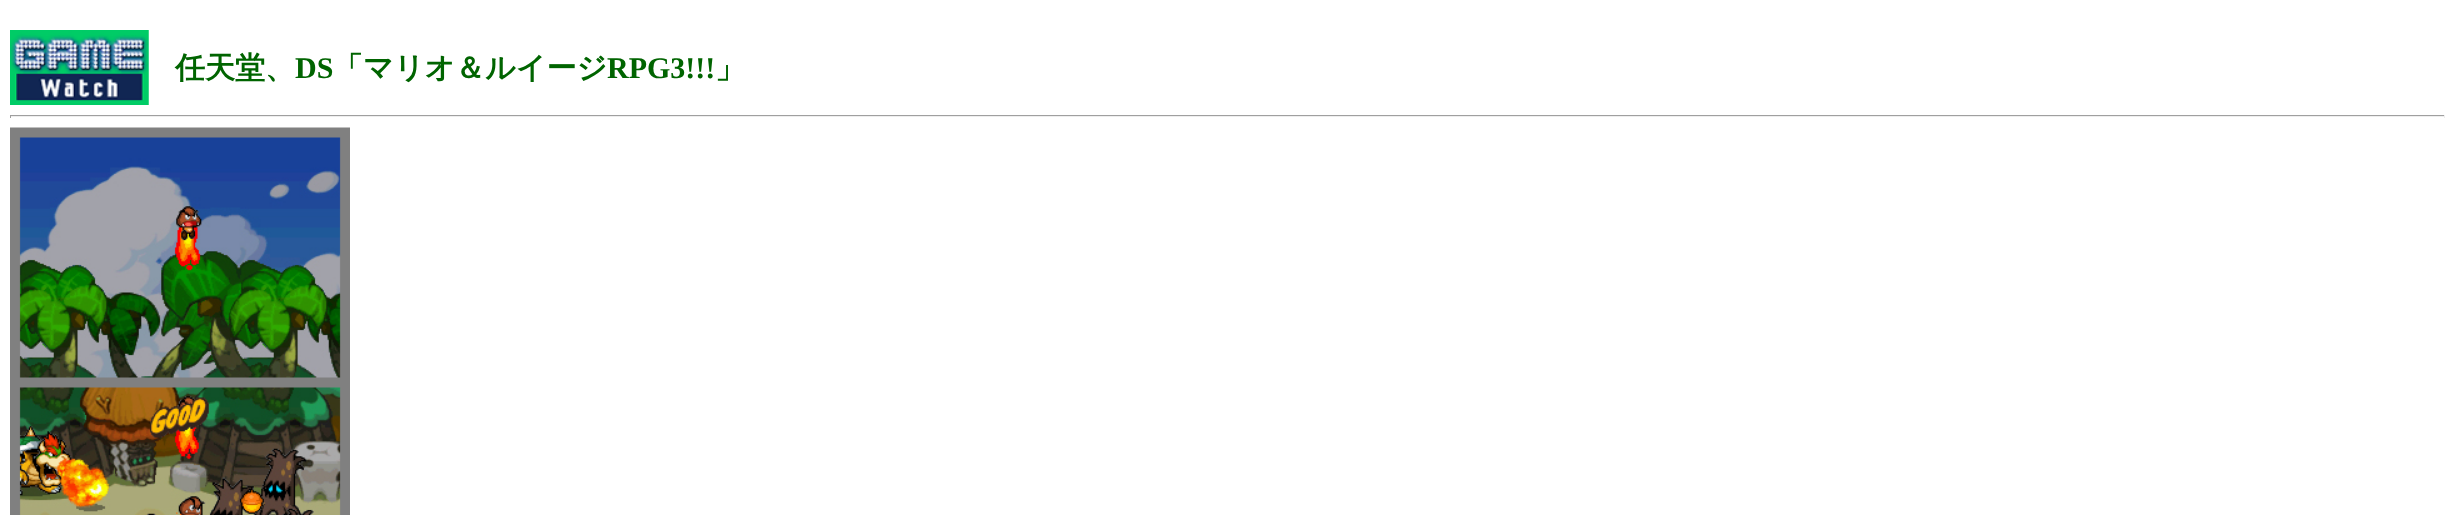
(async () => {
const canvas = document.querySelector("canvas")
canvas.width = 2454
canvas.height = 515
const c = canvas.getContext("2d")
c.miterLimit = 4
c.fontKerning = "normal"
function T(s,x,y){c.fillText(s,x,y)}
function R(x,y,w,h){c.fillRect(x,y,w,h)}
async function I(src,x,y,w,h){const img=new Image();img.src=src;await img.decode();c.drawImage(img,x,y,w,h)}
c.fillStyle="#fff"
R(0,0,2454,515)
await I("1.png",10,30,139,75)
c.font="bold 30px WenQuanYi Zen Hei"
c.fillStyle="#006400"
T("任天堂、",175,78)
c.font="bold 30px Liberation Serif"
T("DS",295,78)
c.font="bold 30px WenQuanYi Zen Hei"
T("「マリオ＆ルイージ",333,78)
c.font="bold 30px Liberation Serif"
T("RPG3!!!",607,78)
c.font="bold 30px WenQuanYi Zen Hei"
T("」",715,78)
c.fillStyle="#9f9f9f"
R(10,115,2435,1)
c.fillStyle="#eee"
R(2444,115,1,3)
R(10,116,2435,1)
c.fillStyle="#9f9f9f"
R(10,115,1,3)
await I("2.png",10,127,340,388)
})()
